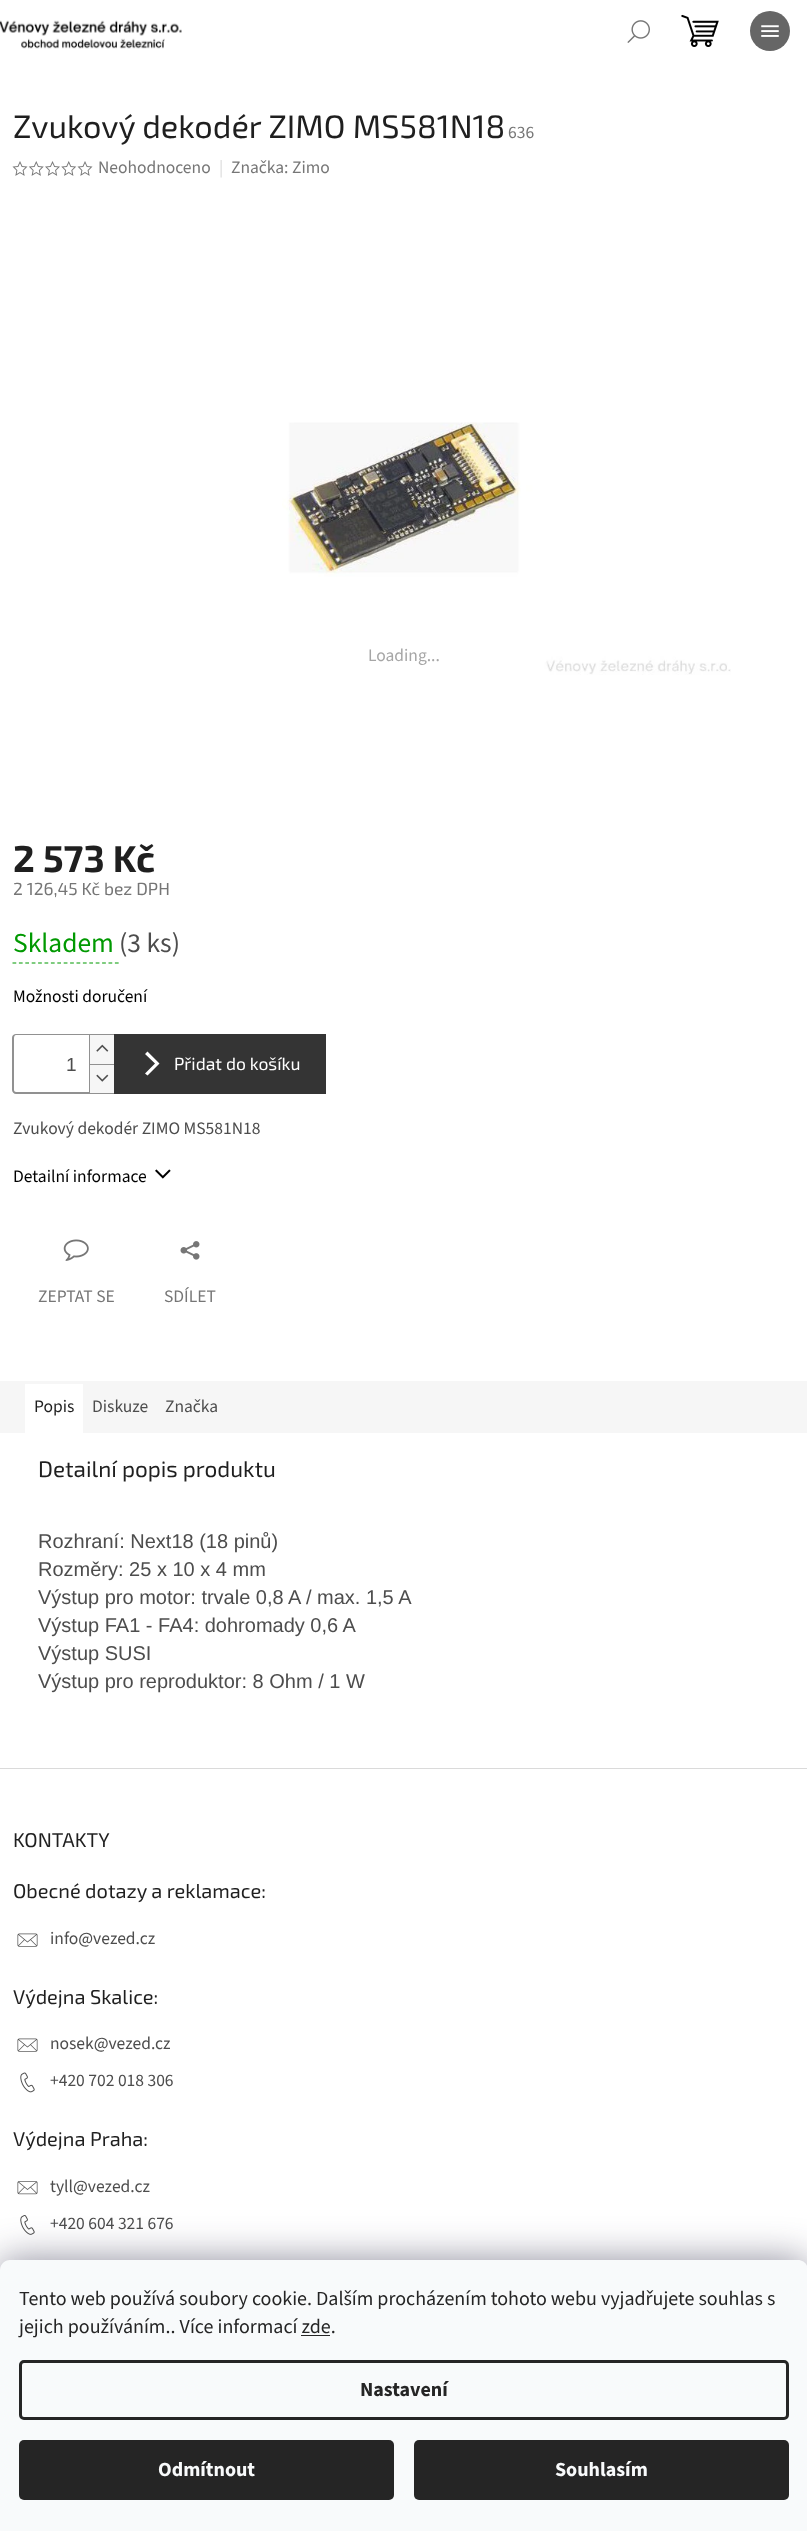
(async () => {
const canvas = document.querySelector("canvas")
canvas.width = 807
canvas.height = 2531
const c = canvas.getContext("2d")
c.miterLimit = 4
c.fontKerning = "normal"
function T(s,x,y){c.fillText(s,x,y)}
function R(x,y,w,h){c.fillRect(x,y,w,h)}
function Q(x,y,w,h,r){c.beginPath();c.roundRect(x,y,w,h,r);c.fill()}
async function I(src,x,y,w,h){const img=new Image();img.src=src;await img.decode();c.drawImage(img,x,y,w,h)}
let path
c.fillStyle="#fff"
R(0,0,807,2531)
await I("1.png",627,20,23,23)
c.fillStyle="#666"
c.beginPath()
c.arc(770,31,20,0,7)
c.fill()
await I("2.png",761,25,18,12)
await I("3.png",0,20,182,29)
await I("4.png",681,14,38,33)
c.font="32.5px 'Exo 2'"
c.fillStyle="#1f1f1f"
T("Zvukový dekodér ZIMO MS581N18",13,138)
c.font="17.5px 'Source Sans 3'"
c.fillStyle="#767676"
T("636",508,138)
await I("5.png",12,161,16,15)
await I("6.png",28,161,16,15)
await I("7.png",45,161,15,15)
await I("8.png",61,161,16,15)
await I("5.png",77,161,16,15)
T("Neohodnoceno",98,173)
c.fillStyle="#dadada"
T("|",219,173)
c.fillStyle="#767676"
T("Značka: Zimo",231,173)
await I("9.png",282,422,449,253)
c.fillStyle="#a6a6a6"
T("Loading...",368,661)
c.font="bold 37.5px 'Exo 2'"
c.fillStyle="#1f1f1f"
T("2 573 Kč",13,872)
c.font="17.5px 'Exo 2'"
c.fillStyle="#767676"
T("2 126,45 Kč bez DPH",13,895)
c.font="27.5px 'Source Sans 3'"
c.fillStyle="#009901"
T("Skladem",13,952)
path = new Path2D("M12.5 963h106.5")
c.strokeStyle="#009901"
c.lineWidth=1.2
c.setLineDash([3.75,2.65])
c.stroke(path)
c.fillStyle="#4d4d4d"
T("(3 ks)",119,952)
c.font="17.5px 'Source Sans 3'"
c.fillStyle="#000"
T("Možnosti doručení",13,1002)
c.fillStyle="#919191"
path = new Path2D("M16 1034h98v60h-98c-2 0-4-2-4-4v-52c0-3 2-4 4-4zm0 1h98v57h-98c-1 0-2-1-2-2v-52c0-2 1-3 2-3z")
c.fill(path,"evenodd")
c.font="19px Liberation Sans"
c.fillStyle="#4d4d4d"
T("1",66,1071)
c.fillStyle="#f6f6f6"
R(90,1035,24,29)
c.fillStyle="#919191"
R(89,1035,1,29)
await I("10.png",96,1044,13,8)
c.fillStyle="#f6f6f6"
R(90,1065,24,28)
c.fillStyle="#919191"
R(89,1064,25,1)
R(89,1064,1,29)
await I("11.png",96,1074,13,8)
c.fillStyle="#343434"
R(114,1034,212,60)
c.fillStyle="#fff"
path = new Path2D("M147.5 1075.5l-2.5-2l10-10l-10-9.5l2.5-2.5l12 12z")
c.fill(path)
c.font="17.5px 'Exo 2'"
T("Přidat do košíku",174,1070)
c.font="17.5px 'Source Sans 3'"
c.fillStyle="#4d4d4d"
T("Zvukový dekodér ZIMO MS581N18",13,1134)
c.fillStyle="#000"
T("Detailní informace",13,1182)
await I("12.png",155,1169,16,10)
await I("13.png",63,1239,26,22)
c.fillStyle="#767676"
T("ZEPTAT SE",38,1302)
await I("14.png",180,1241,20,19)
T("SDÍLET",164,1302)
c.fillStyle="#f6f6f6"
R(0,1381,807,52)
c.fillStyle="#fff"
R(25,1384,58,49)
c.fillStyle="#1f1f1f"
T("Popis",34,1412)
c.fillStyle="#4d4d4d"
T("Diskuze",92,1412)
T("Značka",165,1412)
c.font="22.5px 'Exo 2'"
c.fillStyle="#1f1f1f"
T("Detailní popis produktu",38,1477)
c.font="20px Liberation Sans"
c.fillStyle="#4d4d4d"
T("Rozhraní: Next18 (18 pinů)",38,1548)
T("Rozměry: 25 x 10 x 4 mm",38,1576)
T("Výstup pro motor: trvale 0,8 A / max. 1,5 A",38,1604)
T("Výstup FA1 - FA4: dohromady 0,6 A",38,1632)
T("Výstup SUSI",38,1660)
T("Výstup pro reproduktor: 8 Ohm / 1 W",38,1688)
c.fillStyle="#dadada"
R(0,1768,807,1)
c.font="20px 'Exo 2'"
c.fillStyle="#1f1f1f"
T("KONTAKTY",13,1847)
T("Obecné dotazy a reklamace:",13,1898)
await I("15.png",17,1933,21,14)
c.font="17.5px 'Source Sans 3'"
c.fillStyle="#4d4d4d"
T("info@vezed.cz",50,1944)
c.font="20px 'Exo 2'"
c.fillStyle="#1f1f1f"
T("Výdejna Skalice:",13,2004)
await I("15.png",17,2038,21,14)
c.font="17.5px 'Source Sans 3'"
c.fillStyle="#4d4d4d"
T("nosek@vezed.cz",50,2049)
await I("16.png",20,2072,15,21)
T("+420 702 018 306",50,2086)
c.font="20px 'Exo 2'"
c.fillStyle="#1f1f1f"
T("Výdejna Praha:",13,2146)
await I("17.png",17,2181,21,14)
c.font="17.5px 'Source Sans 3'"
c.fillStyle="#4d4d4d"
T("tyll@vezed.cz",50,2192)
await I("18.png",20,2215,15,20)
T("+420 604 321 676",50,2229)
c.fillStyle="#1b193980"
c.filter="blur(19px)"
c.beginPath()
c.roundRect(0,2260,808,271,10)
c.fill()
c.filter="none"
c.fillStyle="#f8fafb"
path = new Path2D("M10 2260h788c5.5 0 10 4.5 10 10v261h-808v-261c0-5.5 4.5-10 10-10z")
c.fill(path)
c.font="20px 'Source Sans 3'"
c.fillStyle="#252525"
T("Tento web používá soubory cookie. Dalším procházením tohoto webu vyjadřujete souhlas s",19,2305)
T("jejich používáním.. Více informací zde.",19,2333)
R(301,2335,29,1)
c.beginPath()
c.roundRect(20.5,2361.5,767,57,3.5)
c.strokeStyle="#252525"
c.lineWidth=3
c.setLineDash([])
c.stroke()
c.font="bold 20px 'Source Sans 3'"
T("Nastavení",360,2396)
Q(19,2440,375,60,5)
c.fillStyle="#f8fafb"
T("Odmítnout",158,2476)
c.fillStyle="#252525"
Q(414,2440,375,60,5)
c.fillStyle="#f8fafb"
T("Souhlasím",555,2476)
})()
